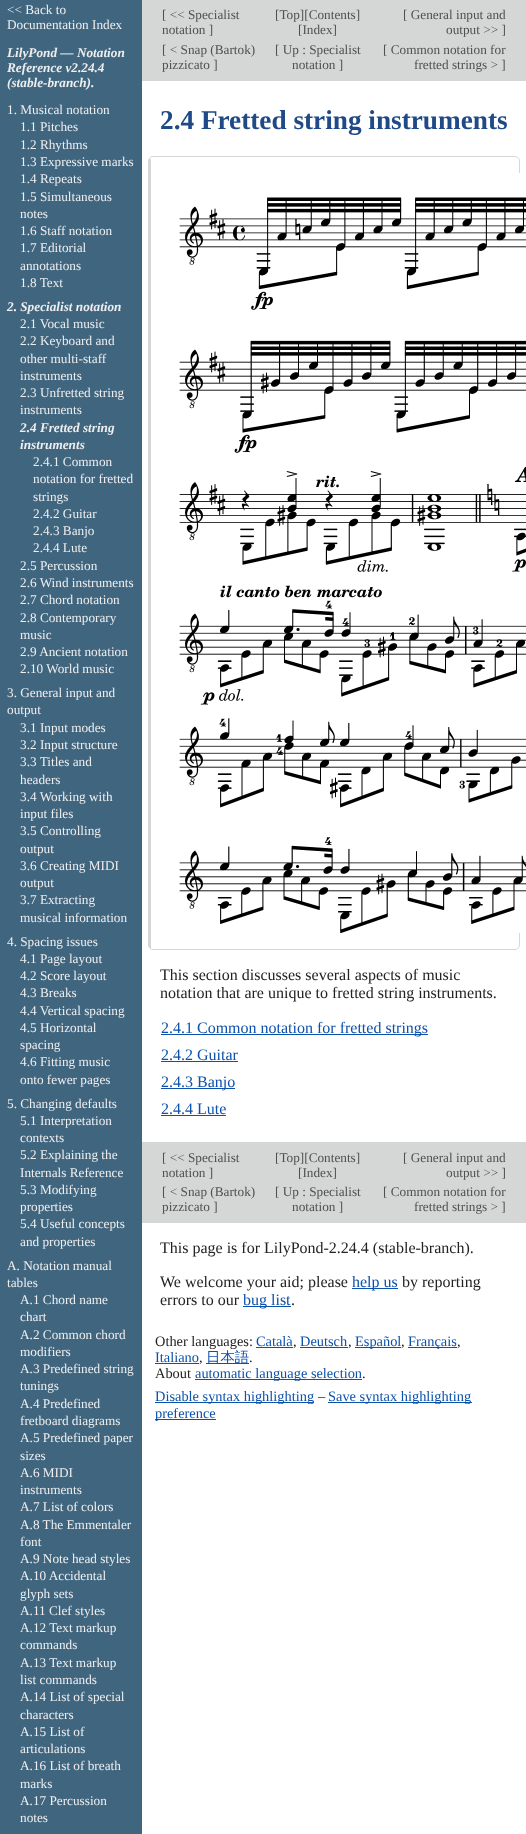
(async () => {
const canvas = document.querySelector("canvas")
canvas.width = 526
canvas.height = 1834
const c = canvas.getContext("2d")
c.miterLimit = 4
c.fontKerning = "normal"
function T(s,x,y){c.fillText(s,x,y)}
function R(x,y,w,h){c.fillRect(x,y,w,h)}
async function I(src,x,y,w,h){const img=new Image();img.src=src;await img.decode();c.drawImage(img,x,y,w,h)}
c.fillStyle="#fff"
R(0,0,526,1834)
c.fillStyle="#40657f"
R(0,0,142,1834)
c.font="13.25px Liberation Serif"
c.fillStyle="#eee"
T("<< Back to",7,14)
T("Documentation Index",7,29)
c.font="italic bold 13.25px Liberation Serif"
T("LilyPond — Notation",7,57)
T("Reference v2.24.4",7,72)
T("(stable-branch).",7,87)
c.font="13.25px Liberation Serif"
T("1. Musical notation",7,114)
T("1.1 Pitches",20,131)
T("1.2 Rhythms",20,149)
T("1.3 Expressive marks",20,166)
T("1.4 Repeats",20,183)
T("1.5 Simultaneous",20,201)
T("notes",20,218)
T("1.6 Staff notation",20,235)
T("1.7 Editorial",20,252)
T("annotations",20,270)
T("1.8 Text",20,287)
c.font="italic bold 13.25px Liberation Serif"
T("2. Specialist notation",7,311)
c.font="13.25px Liberation Serif"
T("2.1 Vocal music",20,328)
T("2.2 Keyboard and",20,345)
T("other multi-staff",20,363)
T("instruments",20,380)
T("2.3 Unfretted string",20,397)
T("instruments",20,414)
c.font="italic bold 13.25px Liberation Serif"
T("2.4 Fretted string",20,432)
T("instruments",20,449)
c.font="13.25px Liberation Serif"
T("2.4.1 Common",33,466)
T("notation for fretted",33,483)
T("strings",33,501)
T("2.4.2 Guitar",33,518)
T("2.4.3 Banjo",33,535)
T("2.4.4 Lute",33,552)
T("2.5 Percussion",20,570)
T("2.6 Wind instruments",20,587)
T("2.7 Chord notation",20,604)
T("2.8 Contemporary",20,622)
T("music",20,639)
T("2.9 Ancient notation",20,656)
T("2.10 World music",20,673)
T("3. General input and",7,697)
T("output",7,714)
T("3.1 Input modes",20,732)
T("3.2 Input structure",20,749)
T("3.3 Titles and",20,766)
T("headers",20,784)
T("3.4 Working with",20,801)
T("input files",20,818)
T("3.5 Controlling",20,835)
T("output",20,853)
T("3.6 Creating MIDI",20,870)
T("output",20,887)
T("3.7 Extracting",20,904)
T("musical information",20,922)
T("4. Spacing issues",7,946)
T("4.1 Page layout",20,963)
T("4.2 Score layout",20,980)
T("4.3 Breaks",20,997)
T("4.4 Vertical spacing",20,1015)
T("4.5 Horizontal",20,1032)
T("spacing",20,1049)
T("4.6 Fitting music",20,1066)
T("onto fewer pages",20,1084)
T("5. Changing defaults",7,1108)
T("5.1 Interpretation",20,1125)
T("contexts",20,1142)
T("5.2 Explaining the",20,1159)
T("Internals Reference",20,1177)
T("5.3 Modifying",20,1194)
T("properties",20,1211)
T("5.4 Useful concepts",20,1228)
T("and properties",20,1246)
T("A. Notation manual",7,1270)
T("tables",7,1287)
T("A.1 Chord name",20,1304)
T("chart",20,1321)
T("A.2 Common chord",20,1339)
T("modifiers",20,1356)
T("A.3 Predefined string",20,1373)
T("tunings",20,1390)
T("A.4 Predefined",20,1408)
T("fretboard diagrams",20,1425)
T("A.5 Predefined paper",20,1442)
T("sizes",20,1460)
T("A.6 MIDI",20,1477)
T("instruments",20,1494)
T("A.7 List of colors",20,1511)
T("A.8 The Emmentaler",20,1529)
T("font",20,1546)
T("A.9 Note head styles",20,1563)
T("A.10 Accidental",20,1580)
T("glyph sets",20,1598)
T("A.11 Clef styles",20,1615)
T("A.12 Text markup",20,1632)
T("commands",20,1649)
T("A.13 Text markup",20,1667)
T("list commands",20,1684)
T("A.14 List of special",20,1701)
T("characters",20,1719)
T("A.15 List of",20,1736)
T("articulations",20,1753)
T("A.16 List of breath",20,1770)
T("marks",20,1788)
T("A.17 Percussion",20,1805)
T("notes",20,1822)
c.fillStyle="#d5d7d6"
R(142,0,384,81)
c.fillStyle="#505050"
T("[ << Specialist",162,19)
T("notation ]",162,34)
T("[Top][Contents]",275,19)
T("[Index]",298,34)
T("[ General input and",403,19)
T("output >> ]",446,34)
T("[ < Snap (Bartok)",162,54)
T("pizzicato ]",162,69)
T("[ Up : Specialist",275,54)
T("notation ]",292,69)
T("[ Common notation for",383,54)
T("fretted strings > ]",414,69)
c.font="bold 27.25px Liberation Serif"
c.fillStyle="#204a87"
T("2.4 Fretted string instruments",160,129)
c.beginPath()
c.roundRect(148.5,156.5,371,793,4.5)
c.strokeStyle="#d5d7d6"
c.stroke()
c.fillStyle="#d5d7d6"
R(149,159,2,789)
await I("1.png",179,173,347,760)
c.font="16px Liberation Serif"
c.fillStyle="#222"
T("This section discusses several aspects of music",160,980)
T("notation that are unique to fretted string instruments.",160,998)
c.fillStyle="#0c51ab"
R(161,1034,267,1)
T("2.4.1 Common notation for fretted strings",161,1033)
T("2.4.2 Guitar",161,1060)
R(161,1061,77,1)
R(161,1088,74,1)
T("2.4.3 Banjo",161,1087)
T("2.4.4 Lute",161,1114)
R(161,1115,65,1)
c.fillStyle="#d5d7d6"
R(142,1142,384,81)
c.font="13.25px Liberation Serif"
c.fillStyle="#505050"
T("[ << Specialist",162,1162)
T("notation ]",162,1177)
T("[Top][Contents]",275,1162)
T("[Index]",298,1177)
T("[ General input and",403,1162)
T("output >> ]",446,1177)
T("[ < Snap (Bartok)",162,1196)
T("pizzicato ]",162,1211)
T("[ Up : Specialist",275,1196)
T("notation ]",292,1211)
T("[ Common notation for",383,1196)
T("fretted strings > ]",414,1211)
c.font="16px Liberation Serif"
c.fillStyle="#222"
T("This page is for LilyPond-2.24.4 (stable-branch).",160,1253)
T("We welcome your aid; please",160,1287)
c.fillStyle="#0c51ab"
R(352,1288,46,1)
T("help us",352,1287)
c.fillStyle="#222"
T("by reporting",402,1287)
T("errors to our",160,1305)
c.fillStyle="#0c51ab"
R(243,1306,48,1)
T("bug list",243,1305)
c.fillStyle="#222"
T(".",291,1305)
c.font="14.4px Liberation Serif"
T("Other languages:",155,1346)
c.fillStyle="#0c51ab"
T("Català",256,1346)
R(256,1347,37,1)
c.fillStyle="#222"
T(",",293,1346)
c.fillStyle="#0c51ab"
T("Deutsch",300,1346)
R(300,1347,48,1)
c.fillStyle="#222"
T(",",348,1346)
c.fillStyle="#0c51ab"
R(355,1347,46,1)
T("Español",355,1346)
c.fillStyle="#222"
T(",",401,1346)
c.fillStyle="#0c51ab"
R(408,1347,49,1)
T("Français",408,1346)
c.fillStyle="#222"
T(",",457,1346)
c.fillStyle="#0c51ab"
T("Italiano",155,1362)
R(155,1363,44,1)
c.fillStyle="#222"
T(",",199,1362)
c.fillStyle="#0c51ab"
R(206,1363,43,1)
c.font="500 14.4px WenQuanYi Zen Hei"
T("日本語",206,1362)
c.font="14.4px Liberation Serif"
c.fillStyle="#222"
T(".",249,1362)
T("About",155,1378)
c.fillStyle="#0c51ab"
R(195,1379,167,1)
T("automatic language selection",195,1378)
c.fillStyle="#222"
T(".",362,1378)
c.fillStyle="#0c51ab"
R(155,1402,159,1)
T("Disable syntax highlighting",155,1401)
c.fillStyle="#222"
T("–",318,1401)
c.fillStyle="#0c51ab"
R(328,1402,144,1)
T("Save syntax highlighting",328,1401)
R(155,1419,61,1)
T("preference",155,1418)
})()
